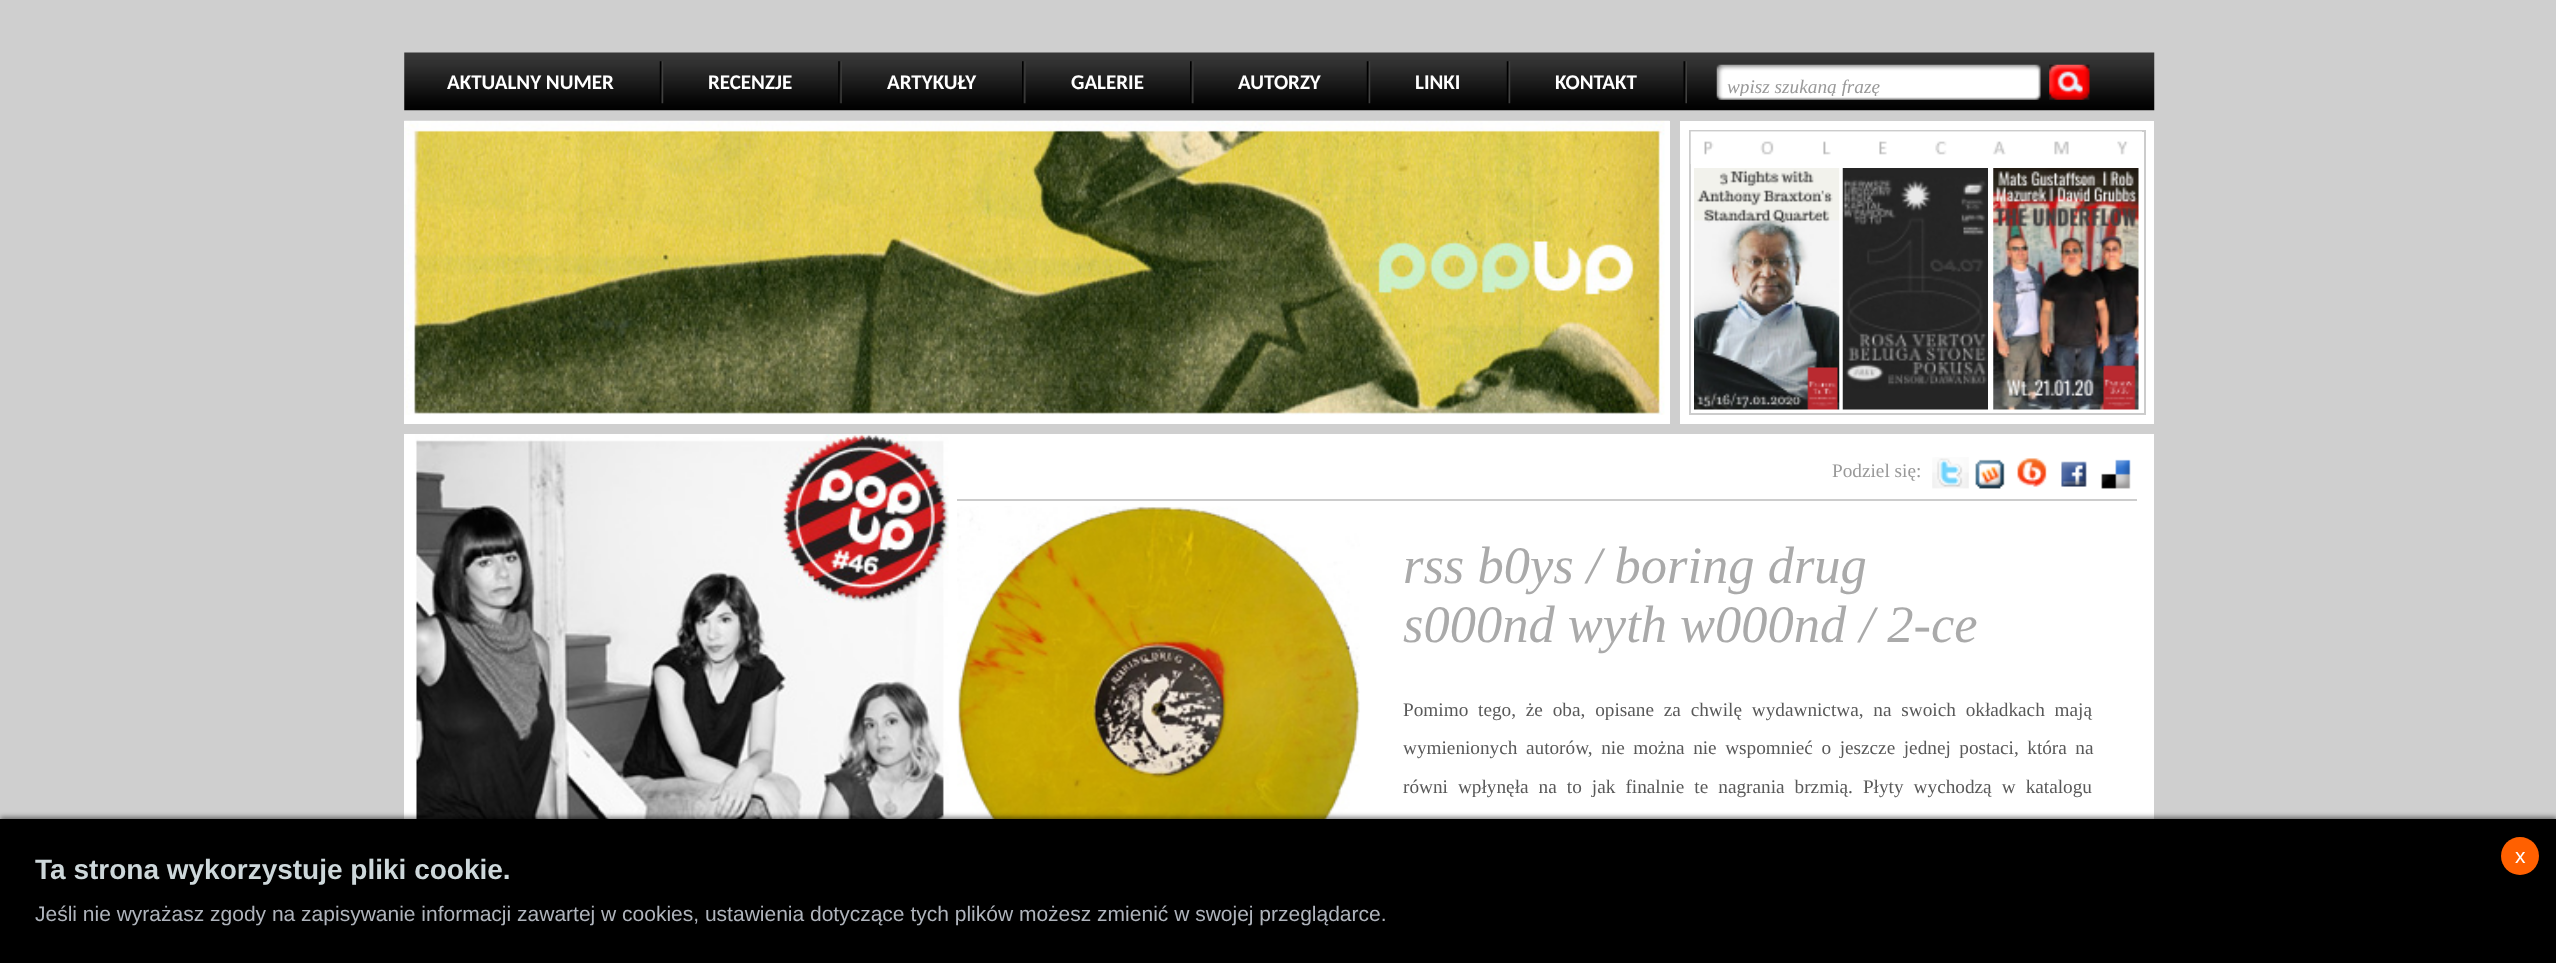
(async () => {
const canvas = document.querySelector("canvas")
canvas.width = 2556
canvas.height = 963
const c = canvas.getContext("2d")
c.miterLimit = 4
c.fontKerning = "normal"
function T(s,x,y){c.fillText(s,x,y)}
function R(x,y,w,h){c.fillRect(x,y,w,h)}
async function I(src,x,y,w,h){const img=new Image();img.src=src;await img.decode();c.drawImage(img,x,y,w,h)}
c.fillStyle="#cfcfcf"
R(0,0,2556,963)
await I("1.png",404,52,1751,59)
c.font="bold 21px Carlito"
c.fillStyle="#fff"
T("AKTUALNY NUMER",447,89)
await I("2.png",659,61,5,43)
T("RECENZJE",708,89)
await I("3.png",838,61,4,43)
T("ARTYKUŁY",887,89)
await I("4.png",1022,61,4,43)
T("GALERIE",1071,89)
await I("4.png",1190,61,4,43)
T("AUTORZY",1238,89)
await I("5.png",1366,61,5,43)
T("LINKI",1415,89)
await I("2.png",1506,61,5,43)
T("KONTAKT",1555,89)
await I("6.png",1683,61,4,43)
await I("7.png",1716,64,325,36)
c.save()
c.beginPath()
c.rect(1727,75,303,21)
c.clip()
c.font="italic 19.25px Liberation Serif"
c.fillStyle="#999"
T("wpisz szukaną frazę",1727,93)
c.restore()
await I("8.png",2049,64,41,36)
R(404,121,1750,303)
c.fillStyle="#cfcfcf"
R(1670,121,10,303)
await I("9.png",404,120,1266,295)
c.strokeStyle="#ccc"
c.lineWidth=2
c.strokeRect(1690,131,455,283)
await I("10.png",1690,131,452,33)
await I("11.png",1694,168,146,242)
await I("12.png",1842,168,146,242)
await I("13.png",1993,168,146,242)
c.fillStyle="#fff"
R(404,434,1750,385)
await I("14.png",415,434,534,385)
c.fillStyle="#ccc"
R(957,499,1180,2)
c.font="19.25px Liberation Serif"
c.fillStyle="#999"
T("Podziel się:",1832,477)
await I("15.png",1932,457,37,32)
await I("16.png",1975,459,30,30)
await I("17.png",2017,458,30,29)
await I("18.png",2061,461,26,26)
await I("19.png",2101,459,30,30)
await I("20.png",957,506,403,313)
c.font="italic 52.5px Liberation Serif"
c.fillStyle="#aaa"
T("rss b0ys / boring drug",1403,583)
T("s000nd wyth w000nd / 2-ce",1403,642)
c.wordSpacing="5px"
c.font="19.25px Liberation Serif"
c.fillStyle="#595959"
T("Pomimo tego, że oba, opisane za chwilę wydawnictwa, na swoich okładkach mają",1403,716)
c.wordSpacing="3.75px"
T("wymienionych autorów, nie można nie wspomnieć o jeszcze jednej postaci, która na",1403,754)
c.wordSpacing="5.25px"
T("równi wpłynęła na to jak finalnie te nagrania brzmią. Płyty wychodzą w katalogu",1403,793)
c.fillStyle="#00000080"
c.filter="blur(2.5px)"
c.beginPath()
c.rect(0,817,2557,146)
c.fill()
c.filter="none"
c.fillStyle="#000"
R(0,819,2556,144)
c.wordSpacing="0px"
c.font="bold 28px Liberation Sans"
c.fillStyle="#cdd7da"
T("Ta strona wykorzystuje pliki cookie.",35,879)
c.fillStyle="#ff6000"
c.beginPath()
c.arc(2520,856,19,0,7)
c.fill()
c.font="21px Liberation Sans"
c.fillStyle="#fff"
T("x",2515,863)
c.fillStyle="#afb4bc"
T("Jeśli nie wyrażasz zgody na zapisywanie informacji zawartej w cookies, ustawienia dotyczące tych plików możesz zmienić w swojej przeglądarce.",35,921)
})()
